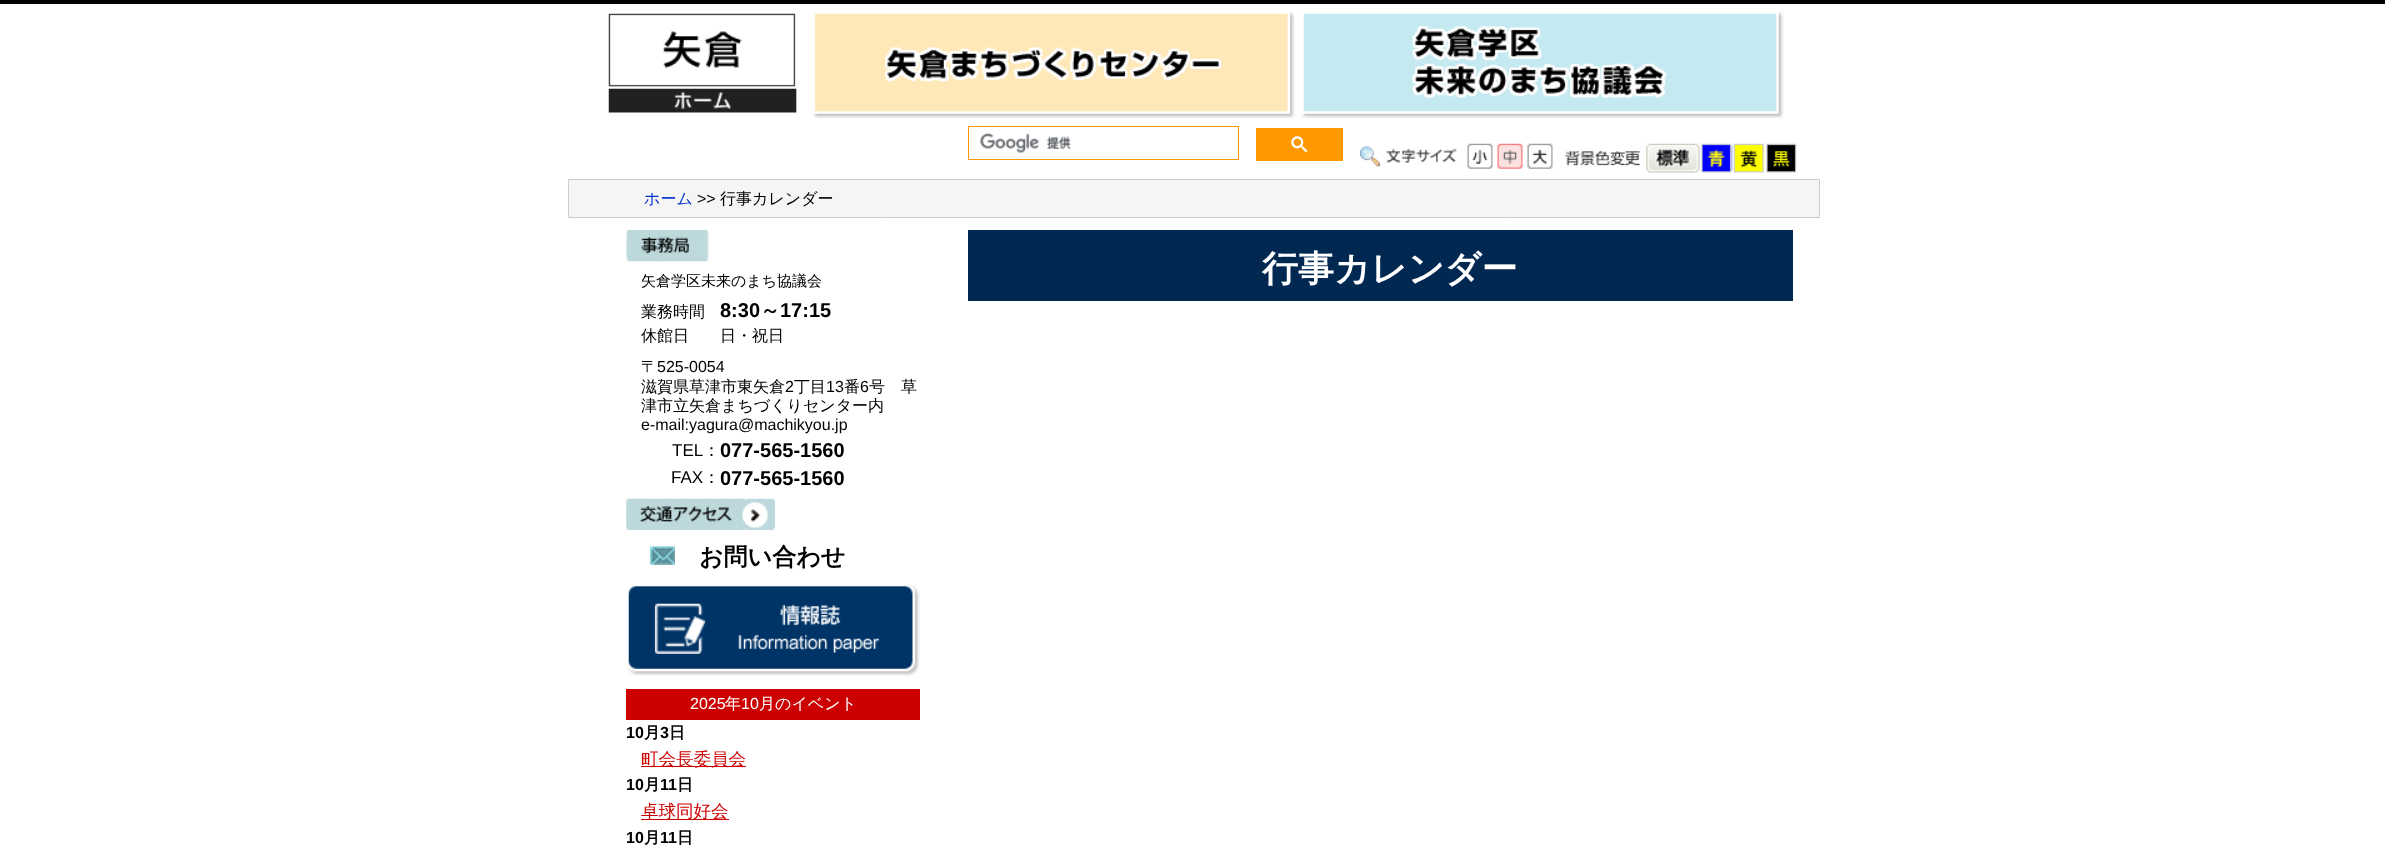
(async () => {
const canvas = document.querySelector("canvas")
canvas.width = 2385
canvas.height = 865
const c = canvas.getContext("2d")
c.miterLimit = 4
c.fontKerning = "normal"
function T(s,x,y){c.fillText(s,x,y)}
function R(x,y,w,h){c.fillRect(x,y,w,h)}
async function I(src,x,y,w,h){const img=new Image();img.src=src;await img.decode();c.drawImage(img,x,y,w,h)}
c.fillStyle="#fff"
R(0,0,2385,865)
c.fillStyle="#000"
R(0,0,2385,4)
await I("1.png",608,13,189,100)
await I("2.png",813,11,482,108)
await I("3.png",1301,11,483,108)
c.strokeStyle="#f90"
c.strokeRect(968.5,126.5,270,33)
await I("4.png",980,133,91,20)
c.fillStyle="#f90"
R(1256,128,87,33)
await I("5.png",1291,136,17,17)
await I("6.png",1360,146,97,21)
await I("7.png",1467,143,26,26)
await I("8.png",1497,143,26,26)
await I("9.png",1527,143,26,26)
await I("10.png",1565,150,76,16)
await I("11.png",1646,143,54,30)
await I("12.png",1701,143,31,30)
await I("13.png",1731,143,34,30)
await I("14.png",1766,143,31,30)
c.fillStyle="#f5f5f5"
c.beginPath()
c.rect(568.5,179.5,1251,38)
c.fill()
c.strokeStyle="#ccc"
c.stroke()
c.font="500 16px WenQuanYi Zen Hei"
c.fillStyle="#03c"
T("ホーム",644,204)
c.font="16px Liberation Sans"
c.fillStyle="#000"
T(">>",697,204)
c.font="500 16px WenQuanYi Zen Hei"
T("行事カレンダー",720,204)
c.fillStyle="#002851"
R(968,230,825,71)
c.font="bold 36px WenQuanYi Zen Hei"
c.fillStyle="#fff"
T("行事カレンダー",1262,281)
await I("15.png",626,230,83,32)
c.font="500 15px WenQuanYi Zen Hei"
c.fillStyle="#000"
T("矢倉学区未来のまち協議会",641,286)
c.font="500 16px WenQuanYi Zen Hei"
T("業務時間",641,317)
c.font="bold 20px Liberation Sans"
T("8:30",720,317)
c.font="bold 20px WenQuanYi Zen Hei"
T("～",760,317)
c.font="bold 20px Liberation Sans"
T("17:15",780,317)
c.font="500 16px WenQuanYi Zen Hei"
T("休館日",641,341)
T("日・祝日",720,341)
T("〒",641,372)
c.font="16px Liberation Sans"
T("525-0054",657,372)
c.font="500 16px WenQuanYi Zen Hei"
T("滋賀県草津市東矢倉",641,392)
c.font="16px Liberation Sans"
T("2",785,392)
c.font="500 16px WenQuanYi Zen Hei"
T("丁目",794,392)
c.font="16px Liberation Sans"
T("13",826,392)
c.font="500 16px WenQuanYi Zen Hei"
T("番",844,392)
c.font="16px Liberation Sans"
T("6",860,392)
c.font="500 16px WenQuanYi Zen Hei"
T("号　草",869,392)
T("津市立矢倉まちづくりセンター内",641,411)
c.font="16px Liberation Sans"
T("e-mail:yagura@machikyou.jp",641,430)
c.font="17px Liberation Sans"
T("TEL",672,456)
c.font="500 17px WenQuanYi Zen Hei"
T("：",703,456)
c.font="bold 20px Liberation Sans"
T("077-565-1560",720,457)
c.font="17px Liberation Sans"
T("FAX",671,483)
c.font="500 17px WenQuanYi Zen Hei"
T("：",703,483)
c.font="bold 20px Liberation Sans"
T("077-565-1560",720,485)
await I("16.png",626,498,149,32)
await I("17.png",650,546,25,19)
c.font="bold 24px WenQuanYi Zen Hei"
T("お問い合わせ",699,565)
await I("18.png",627,584,293,92)
c.fillStyle="#c00"
R(626,689,294,31)
c.font="16px Liberation Sans"
c.fillStyle="#fff"
T("2025",690,709)
c.font="500 16px WenQuanYi Zen Hei"
T("年",725,709)
c.font="16px Liberation Sans"
T("10",741,709)
c.font="500 16px WenQuanYi Zen Hei"
T("月のイベント",759,709)
c.font="bold 16px Liberation Sans"
c.fillStyle="#000"
T("10",626,738)
c.font="bold 16px WenQuanYi Zen Hei"
T("月",644,738)
c.font="bold 16px Liberation Sans"
T("3",660,738)
c.font="bold 16px WenQuanYi Zen Hei"
T("日",669,738)
c.fillStyle="#c00"
R(641,766,105,1)
c.font="500 17.5px WenQuanYi Zen Hei"
T("町会長委員会",641,765)
c.font="bold 16px Liberation Sans"
c.fillStyle="#000"
T("10",626,790)
c.font="bold 16px WenQuanYi Zen Hei"
T("月",644,790)
c.font="bold 16px Liberation Sans"
T("11",660,790)
c.font="bold 16px WenQuanYi Zen Hei"
T("日",677,790)
c.fillStyle="#c00"
R(641,819,88,1)
c.font="500 17.5px WenQuanYi Zen Hei"
T("卓球同好会",641,817)
c.font="bold 16px Liberation Sans"
c.fillStyle="#000"
T("10",626,843)
c.font="bold 16px WenQuanYi Zen Hei"
T("月",644,843)
c.font="bold 16px Liberation Sans"
T("11",660,843)
c.font="bold 16px WenQuanYi Zen Hei"
T("日",677,843)
})()
